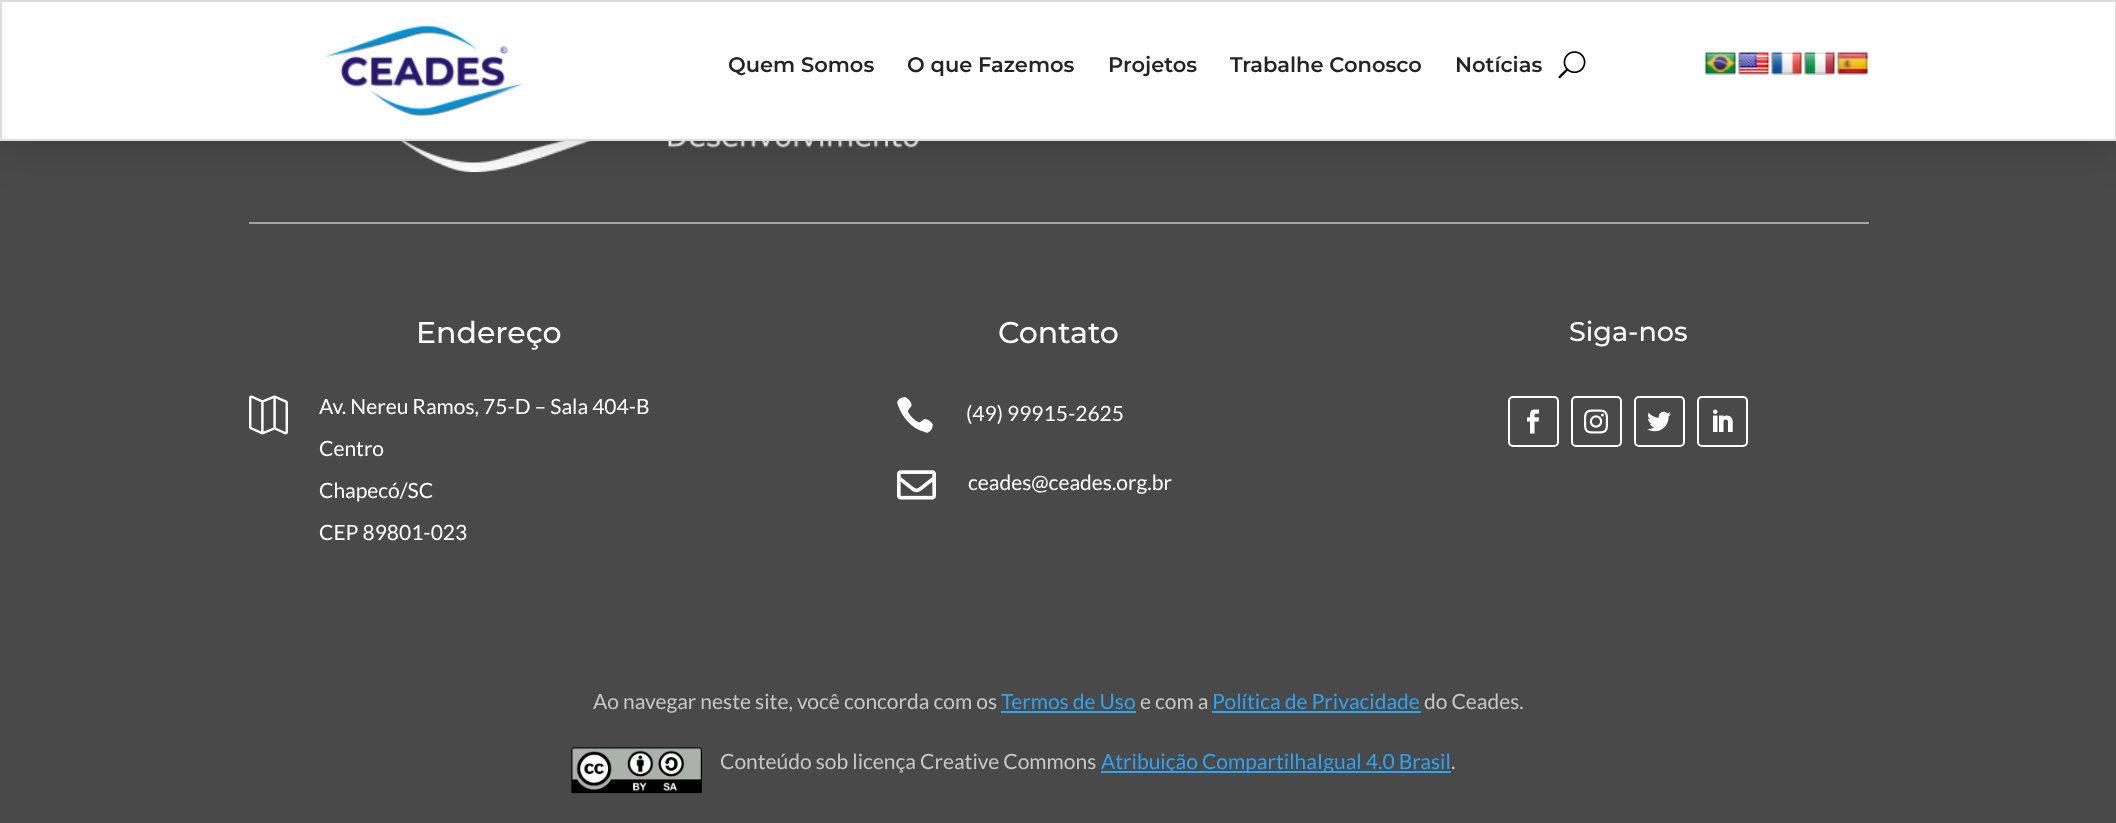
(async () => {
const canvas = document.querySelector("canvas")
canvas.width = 2116
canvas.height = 823
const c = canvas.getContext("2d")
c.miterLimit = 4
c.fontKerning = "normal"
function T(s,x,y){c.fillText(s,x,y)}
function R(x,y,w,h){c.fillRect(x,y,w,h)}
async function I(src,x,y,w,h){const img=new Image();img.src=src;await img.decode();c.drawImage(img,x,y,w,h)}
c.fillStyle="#494949"
R(0,0,2116,823)
await I("8.png",400,141,519,32)
c.fillStyle="#0000004d"
c.filter="blur(30px)"
c.beginPath()
c.rect(-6,-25,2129,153)
c.fill()
c.filter="none"
c.fillStyle="#fff"
c.beginPath()
c.rect(1,1,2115,139)
c.fill()
c.strokeStyle="#ddd"
c.lineWidth=2
c.stroke()
await I("1.png",325,25,198,92)
c.font="100 21px 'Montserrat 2'"
c.fillStyle="#242424"
T("Quem Somos",728,72)
T("O que Fazemos",907,72)
T("Projetos",1108,72)
T("Trabalhe Conosco",1230,72)
T("Notícias",1455,72)
await I("2.png",1558,51,28,28)
await I("3.png",1705,52,31,23)
await I("4.png",1738,52,31,23)
await I("5.png",1771,52,31,23)
await I("6.png",1804,52,31,23)
await I("7.png",1837,52,31,23)
c.fillStyle="#a3a3a3"
R(249,222,1620,2)
c.font="100 30px Montserrat"
c.fillStyle="#fff"
T("Endereço",416,343)
await I("9.png",249,395,39,40)
c.font="21px Lato"
T("Av. Nereu Ramos, 75-D – Sala 404-B",319,414)
T("Centro",319,456)
T("Chapecó/SC",319,498)
T("CEP 89801-023",319,540)
c.font="100 30px Montserrat"
T("Contato",998,343)
await I("10.png",897,397,36,36)
c.font="21px Lato"
T("(49) 99915-2625",966,421)
await I("11.png",897,470,39,30)
T("ceades@ceades.org.br",968,490)
c.font="100 27px Montserrat"
T("Siga-nos",1569,341)
c.beginPath()
c.roundRect(1509,397,49,49,4)
c.strokeStyle="#fff"
c.stroke()
await I("12.png",1527,409,13,25)
c.beginPath()
c.roundRect(1572,397,49,49,4)
c.stroke()
await I("13.png",1584,409,24,25)
c.beginPath()
c.roundRect(1635,397,49,49,4)
c.stroke()
await I("14.png",1647,411,24,21)
c.beginPath()
c.roundRect(1698,397,49,49,4)
c.stroke()
await I("15.png",1713,409,20,23)
c.font="21px Lato"
c.fillStyle="#c7c7c7"
T("Ao navegar neste site, você concorda com os",593,709)
c.fillStyle="#2ea3f2"
T("Termos de Uso",1001,709)
R(1001,711,135,2)
c.fillStyle="#c7c7c7"
T("e com a",1140,709)
c.fillStyle="#2ea3f2"
T("Política de Privacidade",1212,709)
R(1212,711,209,2)
c.fillStyle="#c7c7c7"
T("do Ceades.",1424,709)
await I("16.png",571,747,131,47)
T("Conteúdo sob licença Creative Commons",720,769)
c.fillStyle="#2ea3f2"
R(1101,771,350,2)
T("Atribuição CompartilhaIgual 4.0 Brasil",1101,769)
c.fillStyle="#c7c7c7"
T(".",1451,769)
})()
